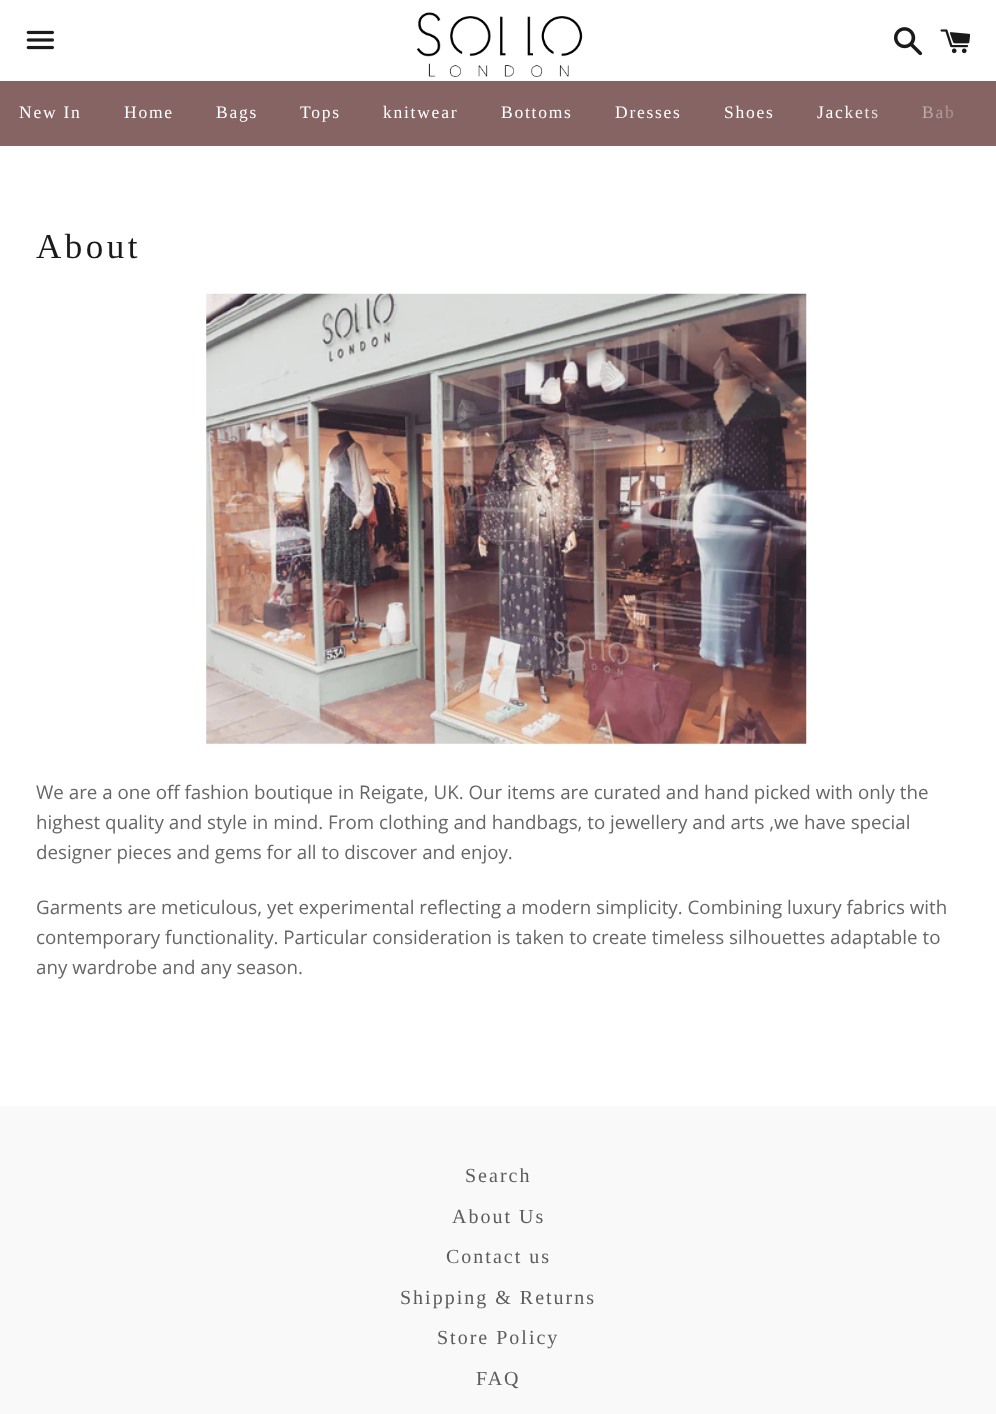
(async () => {
const canvas = document.querySelector("canvas")
canvas.width = 996
canvas.height = 1414
const c = canvas.getContext("2d")
c.miterLimit = 4
c.fontKerning = "normal"
function T(s,x,y){c.fillText(s,x,y)}
function R(x,y,w,h){c.fillRect(x,y,w,h)}
async function I(src,x,y,w,h){const img=new Image();img.src=src;await img.decode();c.drawImage(img,x,y,w,h)}
let gradient
c.fillStyle="#fff"
R(0,0,996,1414)
await I("1.png",26,30,28,20)
await I("2.png",416,12,167,65)
await I("3.png",894,27,29,29)
await I("4.png",940,29,31,25)
c.fillStyle="#866464"
R(0,81,995,65)
c.letterSpacing="1.75px"
c.font="17.5px Liberation Serif"
c.fillStyle="#fff"
T("Jackets",817,118)
T("Bab",922,118)
gradient = c.createLinearGradient(840,114,996,114)
gradient.addColorStop(0,"#86646400")
gradient.addColorStop(1,"#866464")
c.fillStyle = gradient
R(846,81,150,65)
c.fillStyle="#fff"
T("New In",19,118)
T("Home",124,118)
T("Bags",216,118)
T("Tops",300,118)
T("knitwear",383,118)
T("Bottoms",501,118)
T("Dresses",615,118)
T("Shoes",724,118)
c.letterSpacing="3.5px"
c.font="35px Liberation Serif"
c.fillStyle="#1a1a1a"
T("About",36,258)
await I("5.png",206,293,601,451)
c.letterSpacing="0px"
c.font="18.75px Open Sans"
c.fillStyle="#666"
T("We are a one off fashion boutique in Reigate, UK. Our items are curated and hand picked with only the",36,799)
T("highest quality and style in mind. From clothing and handbags, to jewellery and arts ,we have special",36,829)
T("designer pieces and gems for all to discover and enjoy.",36,859)
T("Garments are meticulous, yet experimental reflecting a modern simplicity. Combining luxury fabrics with",36,914)
T("contemporary functionality. Particular consideration is taken to create timeless silhouettes adaptable to",36,944)
T("any wardrobe and any season.",36,974)
c.fillStyle="#f9f9f9"
R(0,1106,996,308)
c.letterSpacing="2px"
c.font="20px Liberation Serif"
c.fillStyle="#5c5c5c"
T("Search",465,1182)
T("About Us",452,1223)
T("Contact us",446,1263)
T("Shipping & Returns",400,1304)
T("Store Policy",437,1344)
T("FAQ",476,1385)
})()
